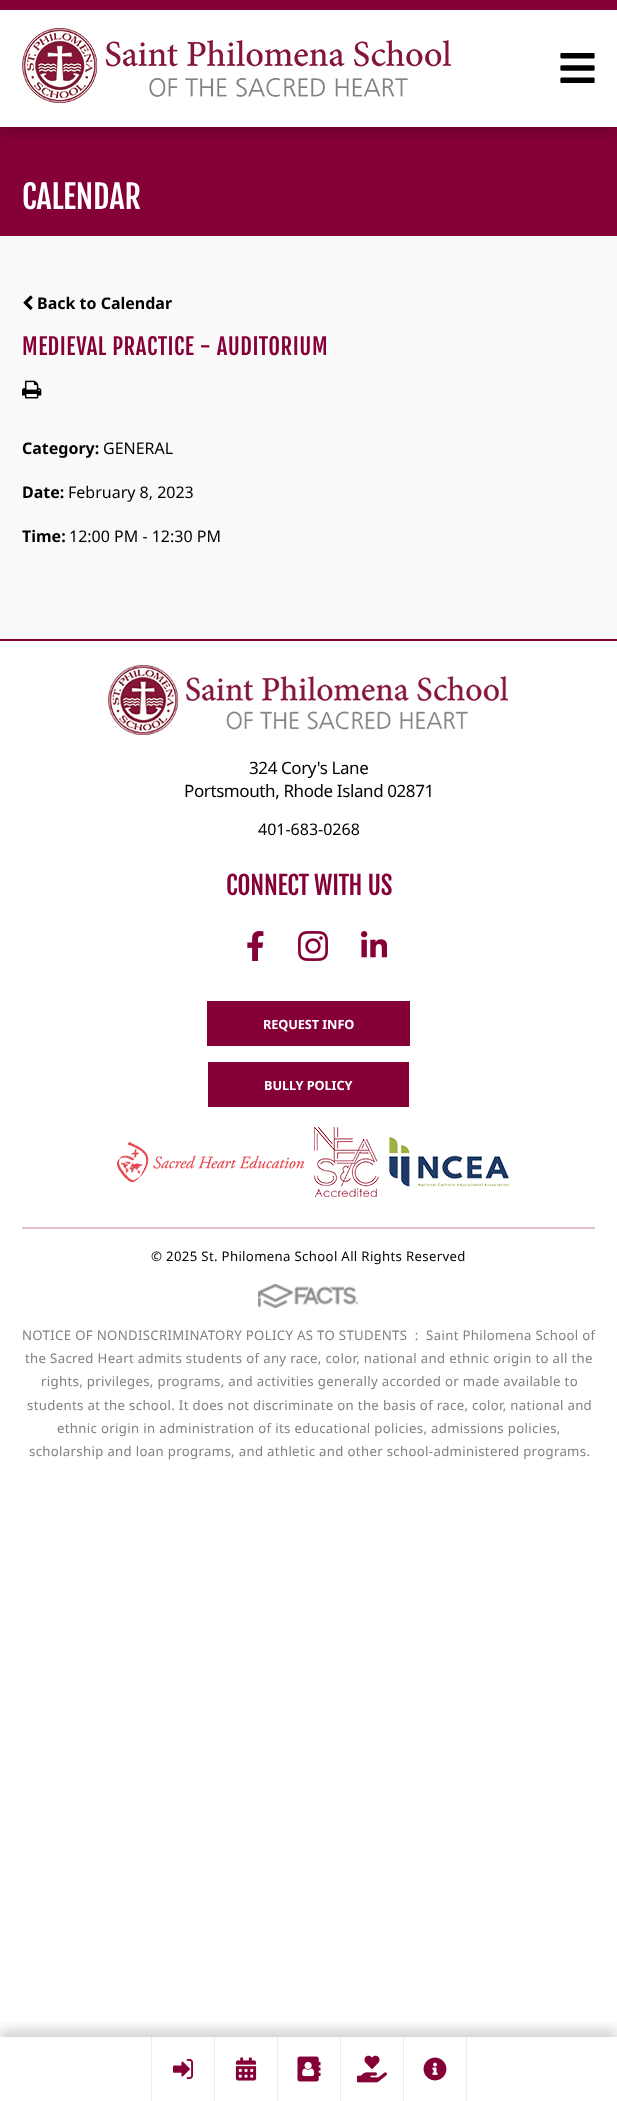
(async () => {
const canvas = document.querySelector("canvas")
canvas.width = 617
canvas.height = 2101
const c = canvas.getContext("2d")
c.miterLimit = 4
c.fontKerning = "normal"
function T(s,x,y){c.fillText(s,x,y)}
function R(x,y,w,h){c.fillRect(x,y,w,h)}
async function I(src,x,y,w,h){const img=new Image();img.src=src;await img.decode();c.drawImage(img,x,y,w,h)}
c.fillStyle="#fff"
R(0,0,617,2101)
c.fillStyle="#860038"
R(0,127,617,109)
c.save()
c.beginPath()
c.rect(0,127,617,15)
c.clip()
c.fillStyle="#00000029"
c.filter="blur(6px)"
c.beginPath()
c.rect(0,8,617,127)
c.fill()
c.filter="none"
c.restore()
R(0,0,617,10)
await I("1.png",22,28,429,75)
await I("2.png",560,53,35,30)
c.save()
c.beginPath()
c.rect(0,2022,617,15)
c.clip()
c.fillStyle="#00000029"
c.filter="blur(6px)"
c.beginPath()
c.rect(0,2029,617,64)
c.fill()
c.filter="none"
c.restore()
c.fillStyle="#ebebeb"
R(214,2037,1,64)
R(151,2037,1,64)
await I("3.png",173,2059,20,20)
R(277,2037,1,64)
await I("4.png",235,2057,22,24)
R(340,2037,1,64)
await I("5.png",297,2056,24,26)
R(403,2037,1,64)
await I("6.png",357,2055,30,28)
R(466,2037,1,64)
await I("7.png",423,2057,24,24)
c.font="32px Fjalla One"
c.fillStyle="#fff"
T("CALENDAR",22,209)
c.fillStyle="#f9f9f9"
R(0,236,617,403)
await I("8.png",23,295,10,15)
c.font="bold 16px Noto Sans"
c.fillStyle="#000"
T("Back to Calendar",37,309)
c.letterSpacing="0.55px"
c.font="22.6px Fjalla One"
c.fillStyle="#860038"
T("MEDIEVAL PRACTICE - AUDITORIUM",22,355)
await I("9.png",22,380,20,19)
c.letterSpacing="0px"
c.font="bold 16px Noto Sans"
c.fillStyle="#000"
T("Category:",22,454)
c.font="16px Noto Sans"
T("GENERAL",103,454)
c.font="bold 16px Noto Sans"
T("Date:",22,498)
c.font="16px Noto Sans"
T("February 8, 2023",68,498)
c.font="bold 16px Noto Sans"
T("Time:",22,542)
c.font="16px Noto Sans"
T("12:00 PM - 12:30 PM",69,542)
c.fillStyle="#860038"
R(0,639,617,2)
c.fillStyle="#e1bfcd"
R(22,1227,573,2)
await I("10.png",108,665,400,70)
c.letterSpacing="-0.4px"
c.font="17px Noto Sans"
c.fillStyle="#000"
T("324 Cory's Lane",249,774)
T("Portsmouth, Rhode Island 02871",184,797)
c.letterSpacing="0px"
c.font="16px Noto Sans"
T("401-683-0268",258,835)
c.letterSpacing="-0.25px"
c.font="25.5px Fjalla One"
c.fillStyle="#860038"
T("CONNECT WITH US",226,895)
await I("11.png",247,931,17,30)
await I("12.png",298,931,30,30)
await I("13.png",361,931,26,27)
R(207,1001,203,45)
c.letterSpacing="-0.1px"
c.font="bold 12.75px Noto Sans"
c.fillStyle="#fff"
T("REQUEST INFO",263,1029)
c.fillStyle="#860038"
R(208,1062,201,45)
c.fillStyle="#fff"
T("BULLY POLICY",264,1090)
await I("14.png",117,1142,187,40)
await I("15.png",314,1127,65,70)
await I("16.png",389,1137,120,50)
c.letterSpacing="0.33px"
c.font="13.2px Noto Sans"
c.fillStyle="#000"
T("© 2025 St. Philomena School All Rights Reserved",151,1261)
await I("17.png",258,1284,100,24)
c.fillStyle="#808080"
T("NOTICE OF NONDISCRIMINATORY POLICY AS TO STUDENTS  :  Saint Philomena School of",22,1340)
T("the Sacred Heart admits students of any race, color, national and ethnic origin to all the",25,1363)
T("rights, privileges, programs, and activities generally accorded or made available to",41,1386)
T("students at the school. It does not discriminate on the basis of race, color, national and",27,1410)
T("ethnic origin in administration of its educational policies, admissions policies,",57,1433)
T("scholarship and loan programs, and athletic and other school-administered programs.",29,1456)
})()
